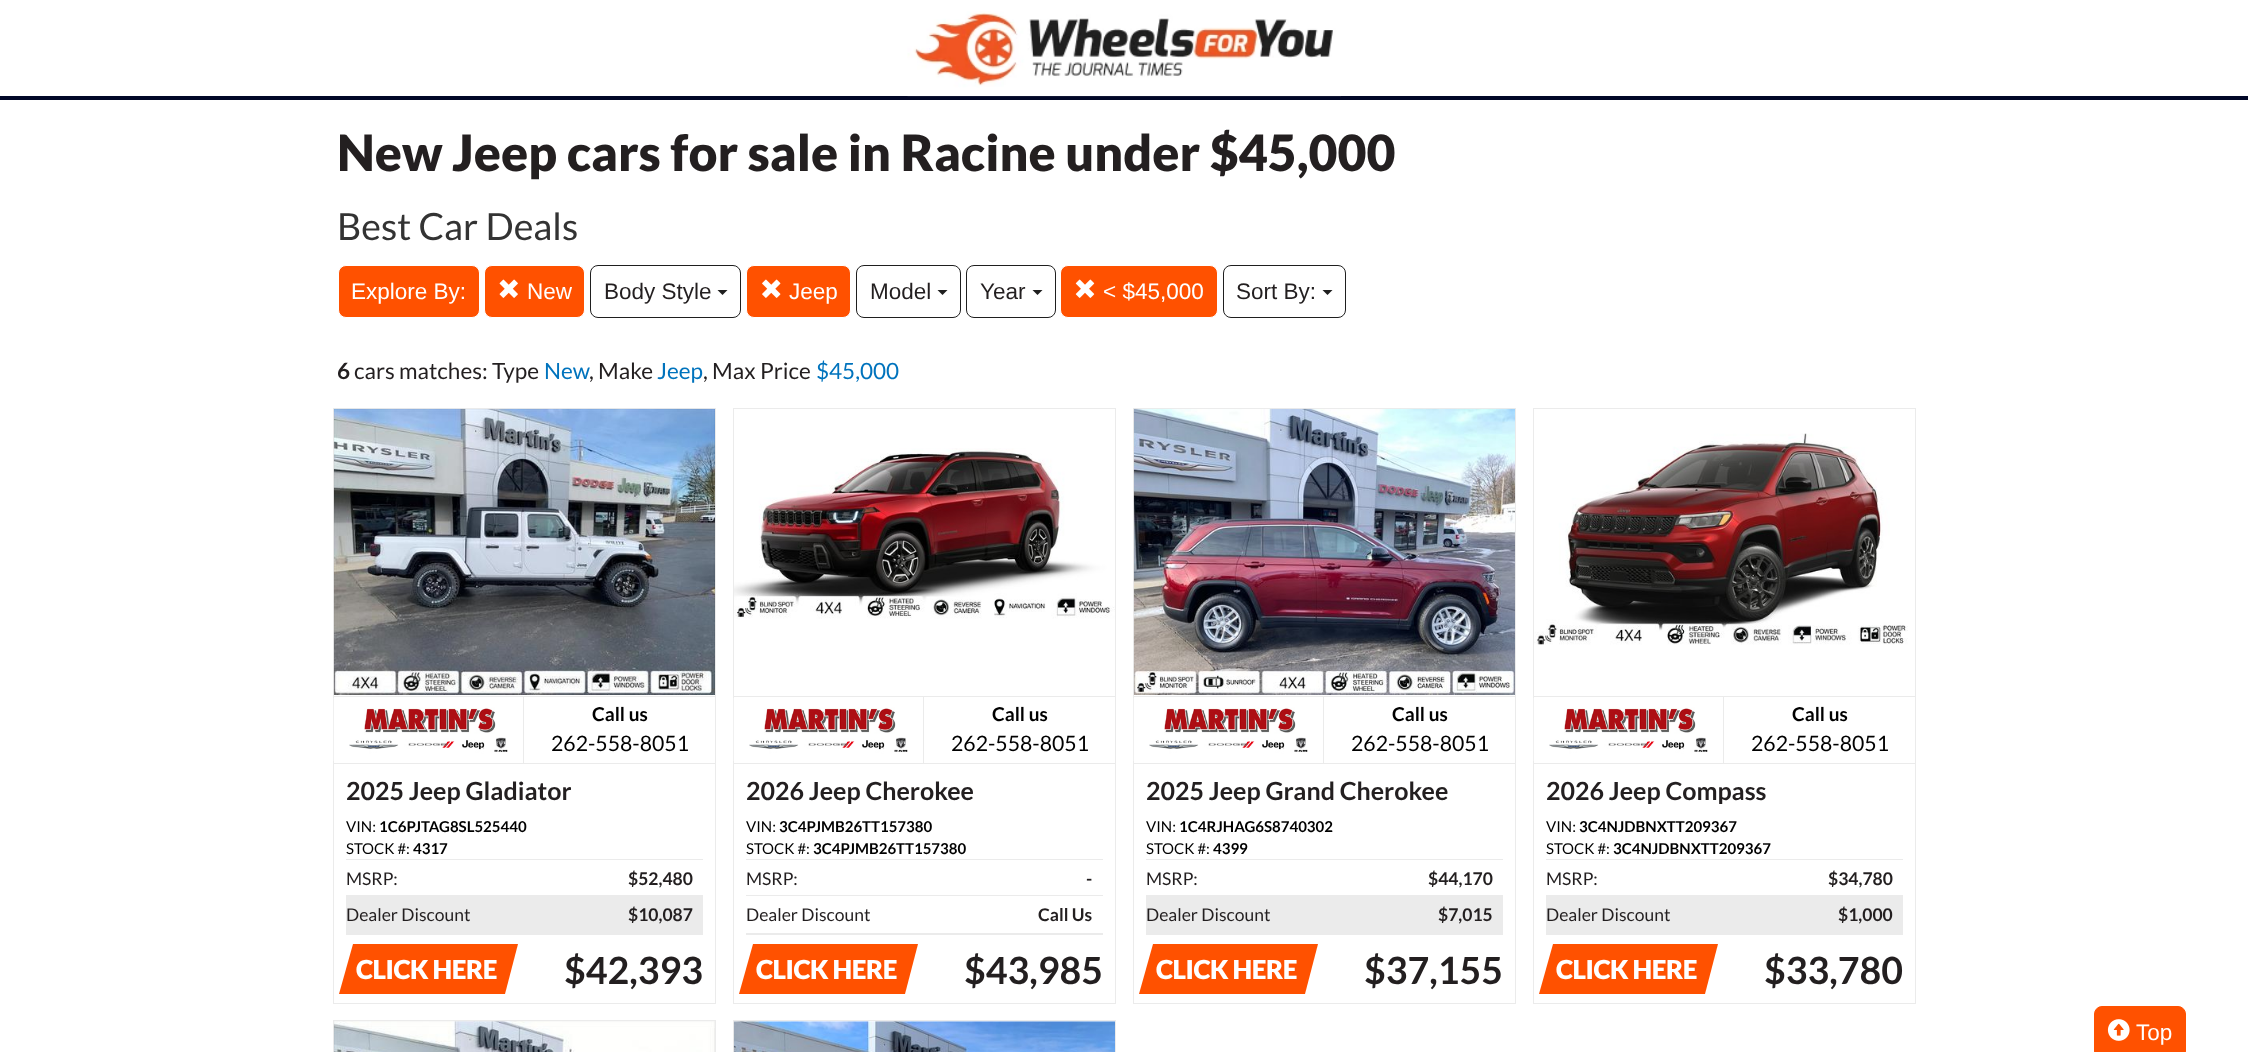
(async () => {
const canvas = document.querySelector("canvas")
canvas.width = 2248
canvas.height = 1052
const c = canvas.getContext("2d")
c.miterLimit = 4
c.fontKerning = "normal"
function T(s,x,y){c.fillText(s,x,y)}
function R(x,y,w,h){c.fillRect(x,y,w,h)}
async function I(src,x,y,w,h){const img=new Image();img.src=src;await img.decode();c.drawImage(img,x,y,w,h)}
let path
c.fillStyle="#fff"
R(0,0,2248,1052)
c.fillStyle="#010727"
R(0,96,2248,4)
await I("1.png",907,11,434,86)
c.font="900 50px Lato"
c.fillStyle="#231f20"
T("New Jeep cars for sale in Racine under $45,000",337,171)
c.font="37.5px Lato"
c.fillStyle="#333"
T("Best Car Deals",337,240)
c.fillStyle="#ff5100"
c.beginPath()
c.roundRect(338.5,265.5,141,52,7.5)
c.fill()
c.strokeStyle="#fff"
c.stroke()
c.font="22.5px Liberation Sans"
c.fillStyle="#fff"
T("Explore By:",351,299)
c.fillStyle="#ff5100"
c.beginPath()
c.roundRect(484.5,265.5,100,52,7.5)
c.fill()
c.stroke()
await I("2.png",499,279,19,19)
c.fillStyle="#fff"
T("New",527,299)
c.beginPath()
c.roundRect(590.5,265.5,150,52,7.5)
c.strokeStyle="#1f1f1f"
c.stroke()
c.fillStyle="#231f20"
T("Body Style",604,299)
c.fillStyle="#1f1f1f"
path = new Path2D("M717.5 290h10l-5 5z")
c.fill(path)
c.fillStyle="#ff5100"
c.beginPath()
c.roundRect(746.5,265.5,104,52,7.5)
c.fill()
c.strokeStyle="#fff"
c.stroke()
await I("3.png",762,279,19,19)
c.fillStyle="#fff"
T("Jeep",789,299)
c.beginPath()
c.roundRect(856.5,265.5,104,52,7.5)
c.strokeStyle="#1f1f1f"
c.stroke()
c.fillStyle="#231f20"
T("Model",870,299)
c.fillStyle="#1f1f1f"
path = new Path2D("M937.5 290h10l-5 5z")
c.fill(path)
c.beginPath()
c.roundRect(966.5,265.5,89,52,7.5)
c.stroke()
c.fillStyle="#231f20"
T("Year",980,299)
c.fillStyle="#1f1f1f"
path = new Path2D("M1032.5 290h10l-5 5z")
c.fill(path)
c.fillStyle="#ff5100"
c.beginPath()
c.roundRect(1060.5,265.5,157,52,7.5)
c.fill()
c.strokeStyle="#fff"
c.stroke()
await I("4.png",1075,279,20,19)
c.fillStyle="#fff"
T("< $45,000",1103,299)
c.beginPath()
c.roundRect(1223.5,265.5,122,52,7.5)
c.strokeStyle="#1f1f1f"
c.stroke()
c.fillStyle="#231f20"
T("Sort By:",1236,299)
c.fillStyle="#1f1f1f"
path = new Path2D("M1322.5 290h10l-5 5z")
c.fill(path)
c.font="bold 22.5px Lato"
c.fillStyle="#231f20"
T("6",337,379)
c.font="22.5px Lato"
T("cars matches: Type",354,379)
c.fillStyle="#0073bd"
T("New",544,379)
c.fillStyle="#231f20"
T(", Make",589,379)
c.fillStyle="#0073bd"
T("Jeep",657,379)
c.fillStyle="#231f20"
T(", Max Price",703,379)
c.fillStyle="#0073bd"
T("$45,000",816,379)
c.strokeStyle="#ebebeb"
c.strokeRect(333.5,408.5,382,595)
await I("5.png",333,408,382,287)
c.fillStyle="#ebebeb"
R(334,696,381,1)
R(523,696,1,68)
R(334,763,381,1)
await I("6.png",333,698,175,63)
c.font="bold 19px Lato"
c.fillStyle="#000"
T("Call us",592,721)
c.font="21.25px Lato"
T("262-558-8051",551,751)
c.save()
c.beginPath()
c.rect(346,776,225,28)
c.clip()
c.font="bold 25px Lato"
c.fillStyle="#231f20"
T("2025 Jeep Gladiator",346,800)
c.restore()
c.font="15px Lato"
T("VIN:",346,832)
c.font="bold 15px Lato"
T("1C6PJTAG8SL525440",379,832)
c.font="15px Lato"
T("STOCK #:",346,854)
c.font="bold 15px Lato"
T("4317",413,854)
c.fillStyle="#ebebeb"
R(346,859,357,1)
R(346,895,357,40)
c.font="17.5px Lato"
c.fillStyle="#231f20"
T("MSRP:",346,885)
c.font="bold 17.5px Lato"
T("$52,480",628,885)
c.font="17.5px Lato"
T("Dealer Discount",346,921)
c.font="bold 17.5px Lato"
T("$10,087",628,921)
c.fillStyle="#ff5100"
path = new Path2D("M353 944h165l-13 50h-166z")
c.fill(path)
c.letterSpacing="-0.5px"
c.font="900 26px Lato"
c.fillStyle="#fff"
T("CLICK HERE",356,979)
c.letterSpacing="0px"
c.font="bold 37.5px Lato"
c.fillStyle="#231f20"
T("$42,393",564,984)
c.strokeRect(733.5,408.5,382,595)
await I("7.png",734,448,381,171)
c.fillStyle="#ebebeb"
R(734,696,381,1)
R(923,696,1,68)
R(734,763,381,1)
await I("8.png",733,698,175,63)
c.font="bold 19px Lato"
c.fillStyle="#000"
T("Call us",992,721)
c.font="21.25px Lato"
T("262-558-8051",951,751)
c.save()
c.beginPath()
c.rect(746,776,228,28)
c.clip()
c.font="bold 25px Lato"
c.fillStyle="#231f20"
T("2026 Jeep Cherokee",746,800)
c.restore()
c.font="15px Lato"
T("VIN:",746,832)
c.font="bold 15px Lato"
T("3C4PJMB26TT157380",779,832)
c.font="15px Lato"
T("STOCK #:",746,854)
c.font="bold 15px Lato"
T("3C4PJMB26TT157380",813,854)
c.fillStyle="#ebebeb"
R(746,859,357,1)
R(746,895,357,1)
c.font="17.5px Lato"
c.fillStyle="#231f20"
T("MSRP:",746,885)
c.font="bold 17.5px Lato"
T("-",1086,885)
c.fillStyle="#ebebeb"
R(746,933,357,2)
c.font="17.5px Lato"
c.fillStyle="#231f20"
T("Dealer Discount",746,921)
c.font="bold 17.5px Lato"
T("Call Us",1038,921)
c.fillStyle="#ff5100"
path = new Path2D("M753 944h165l-13 50h-166z")
c.fill(path)
c.letterSpacing="-0.5px"
c.font="900 26px Lato"
c.fillStyle="#fff"
T("CLICK HERE",756,979)
c.letterSpacing="0px"
c.font="bold 37.5px Lato"
c.fillStyle="#231f20"
T("$43,985",964,984)
c.strokeRect(1133.5,408.5,382,595)
await I("9.png",1133,408,382,287)
c.fillStyle="#ebebeb"
R(1134,696,381,1)
R(1323,696,1,68)
R(1134,763,381,1)
await I("6.png",1133,698,175,63)
c.font="bold 19px Lato"
c.fillStyle="#000"
T("Call us",1392,721)
c.font="21.25px Lato"
T("262-558-8051",1351,751)
c.save()
c.beginPath()
c.rect(1146,776,303,28)
c.clip()
c.font="bold 25px Lato"
c.fillStyle="#231f20"
T("2025 Jeep Grand Cherokee",1146,800)
c.restore()
c.font="15px Lato"
T("VIN:",1146,832)
c.font="bold 15px Lato"
T("1C4RJHAG6S8740302",1179,832)
c.font="15px Lato"
T("STOCK #:",1146,854)
c.font="bold 15px Lato"
T("4399",1213,854)
c.fillStyle="#ebebeb"
R(1146,859,357,1)
R(1146,895,357,40)
c.font="17.5px Lato"
c.fillStyle="#231f20"
T("MSRP:",1146,885)
c.font="bold 17.5px Lato"
T("$44,170",1428,885)
c.font="17.5px Lato"
T("Dealer Discount",1146,921)
c.font="bold 17.5px Lato"
T("$7,015",1438,921)
c.fillStyle="#ff5100"
path = new Path2D("M1153 944h165l-13 50h-166z")
c.fill(path)
c.letterSpacing="-0.5px"
c.font="900 26px Lato"
c.fillStyle="#fff"
T("CLICK HERE",1156,979)
c.letterSpacing="0px"
c.font="bold 37.5px Lato"
c.fillStyle="#231f20"
T("$37,155",1364,984)
c.strokeRect(1533.5,408.5,382,595)
await I("10.png",1534,433,374,212)
c.fillStyle="#ebebeb"
R(1534,696,381,1)
R(1723,696,1,68)
R(1534,763,381,1)
await I("6.png",1533,698,175,63)
c.font="bold 19px Lato"
c.fillStyle="#000"
T("Call us",1792,721)
c.font="21.25px Lato"
T("262-558-8051",1751,751)
c.save()
c.beginPath()
c.rect(1546,776,220,28)
c.clip()
c.font="bold 25px Lato"
c.fillStyle="#231f20"
T("2026 Jeep Compass",1546,800)
c.restore()
c.font="15px Lato"
T("VIN:",1546,832)
c.font="bold 15px Lato"
T("3C4NJDBNXTT209367",1579,832)
c.font="15px Lato"
T("STOCK #:",1546,854)
c.font="bold 15px Lato"
T("3C4NJDBNXTT209367",1613,854)
c.fillStyle="#ebebeb"
R(1546,859,357,1)
R(1546,895,357,40)
c.font="17.5px Lato"
c.fillStyle="#231f20"
T("MSRP:",1546,885)
c.font="bold 17.5px Lato"
T("$34,780",1828,885)
c.font="17.5px Lato"
T("Dealer Discount",1546,921)
c.font="bold 17.5px Lato"
T("$1,000",1838,921)
c.fillStyle="#ff5100"
path = new Path2D("M1553 944h165l-13 50h-166z")
c.fill(path)
c.letterSpacing="-0.5px"
c.font="900 26px Lato"
c.fillStyle="#fff"
T("CLICK HERE",1556,979)
c.letterSpacing="0px"
c.font="bold 37.5px Lato"
c.fillStyle="#231f20"
T("$33,780",1764,984)
c.strokeRect(333.5,1020.5,382,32)
await I("11.png",333,1021,382,31)
c.strokeRect(733.5,1020.5,382,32)
await I("12.png",733,1021,382,31)
c.fillStyle="#ff5100"
c.beginPath()
c.roundRect(2094.5,1006.5,91,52,7.5)
c.fill()
c.strokeStyle="#ff5100"
c.stroke()
await I("13.png",2107,1019,23,22)
c.font="22.5px Liberation Sans"
c.fillStyle="#fff"
T("Top",2136,1040)
})()
